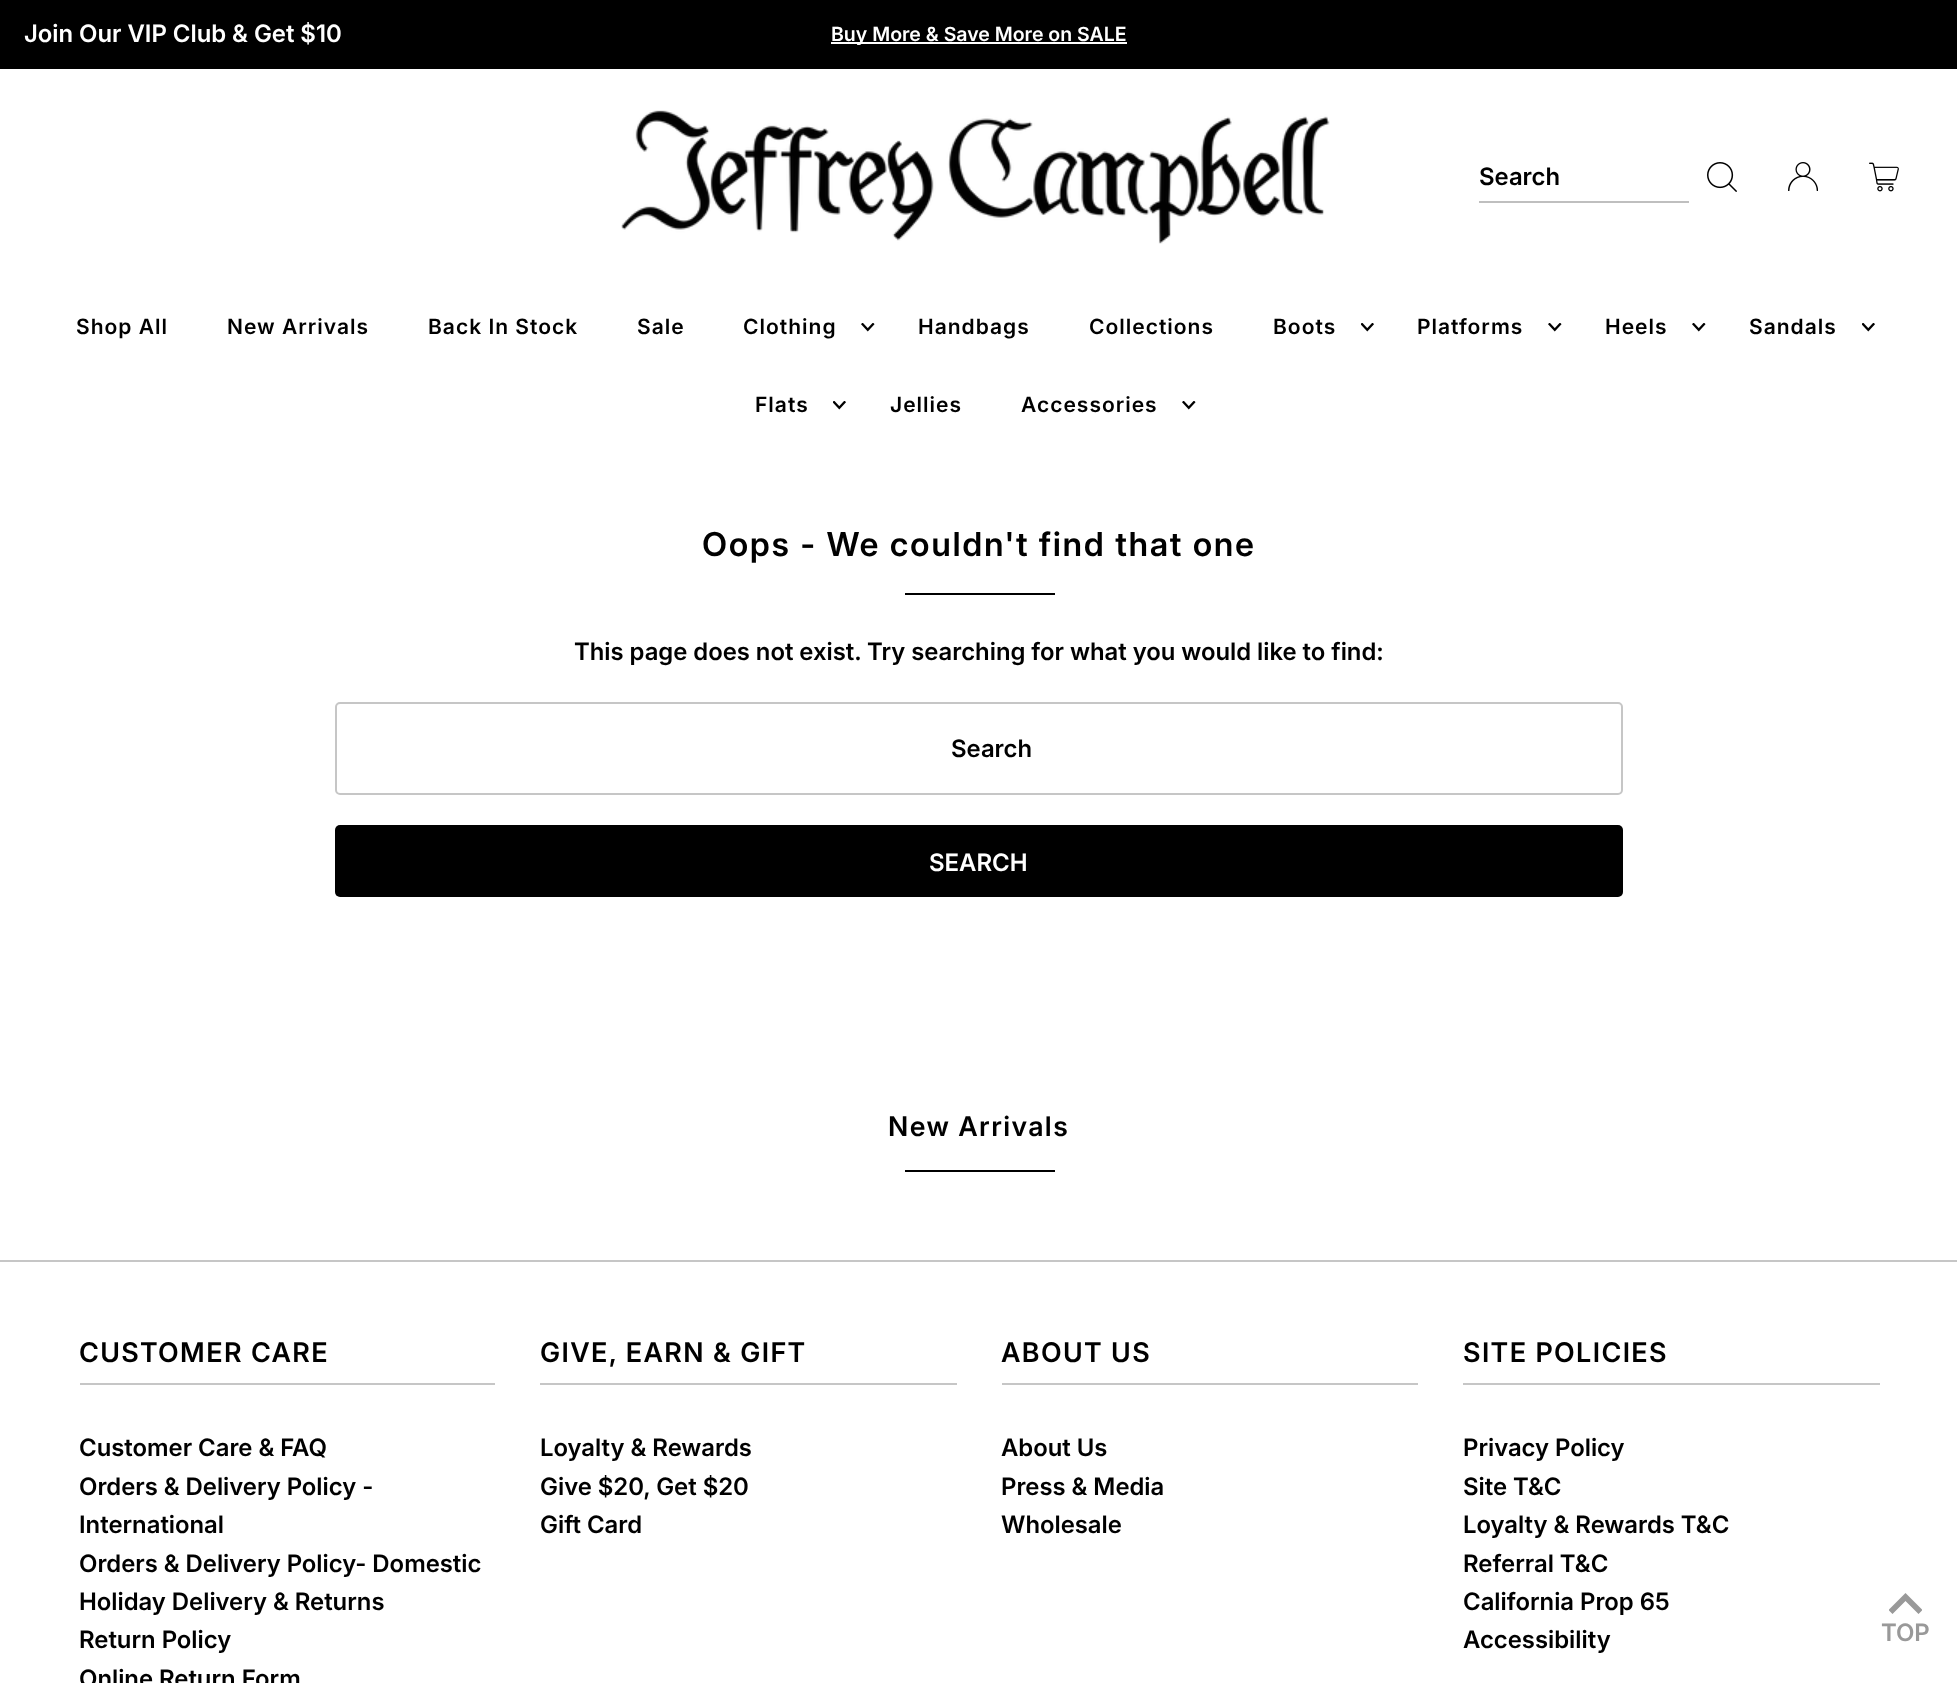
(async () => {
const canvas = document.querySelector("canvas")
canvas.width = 1957
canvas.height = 1683
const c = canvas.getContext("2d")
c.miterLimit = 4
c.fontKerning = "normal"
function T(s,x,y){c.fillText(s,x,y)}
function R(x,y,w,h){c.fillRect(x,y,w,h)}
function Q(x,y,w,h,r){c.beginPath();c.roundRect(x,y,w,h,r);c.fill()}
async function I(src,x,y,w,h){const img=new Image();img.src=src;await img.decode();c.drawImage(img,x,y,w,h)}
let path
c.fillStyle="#fff"
R(0,0,1957,1683)
c.fillStyle="#000"
R(0,0,1957,69)
c.font="600 24px Inter"
c.fillStyle="#fff"
T("Join Our VIP Club & Get $10",24,42)
R(831,42,296,2)
c.font="600 19.5px 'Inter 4'"
T("Buy More & Save More on SALE",831,41)
await I("1.png",621,110,709,134)
c.fillStyle="#bfbfbf"
R(1479,201,210,2)
c.font="600 24px Inter"
c.fillStyle="#000"
T("Search",1479,185)
await I("2.png",1707,162,30,30)
await I("3.png",1788,162,30,29)
await I("4.png",1869,162,30,30)
c.letterSpacing="1px"
c.font="600 21px 'Inter 4'"
T("Shop All",76,334)
T("New Arrivals",227,334)
T("Back In Stock",428,334)
T("Sale",637,334)
T("Clothing",743,334)
await I("5.png",861,323,14,9)
T("Handbags",918,334)
T("Collections",1089,334)
T("Boots",1273,334)
await I("6.png",1361,323,13,9)
T("Platforms",1417,334)
await I("5.png",1548,323,14,9)
T("Heels",1605,334)
await I("5.png",1692,323,14,9)
T("Sandals",1749,334)
await I("6.png",1862,323,13,9)
T("Flats",755,412)
await I("6.png",833,401,13,9)
T("Jellies",890,412)
T("Accessories",1021,412)
await I("5.png",1182,401,14,9)
c.letterSpacing="1.65px"
c.font="600 33px 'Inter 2'"
T("Oops - We couldn't find that one",702,556)
R(905,593,150,2)
c.letterSpacing="0px"
c.font="600 24px Inter"
T("This page does not exist. Try searching for what you would like to find:",574,660)
c.beginPath()
c.roundRect(336,703,1286,91,4)
c.strokeStyle="#c6c6c6"
c.lineWidth=2
c.stroke()
T("Search",951,757)
Q(335,825,1288,72,5)
c.fillStyle="#fff"
T("SEARCH",929,871)
c.letterSpacing="1.4px"
c.font="600 27px 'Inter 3'"
c.fillStyle="#000"
T("New Arrivals",888,1136)
R(905,1170,150,2)
c.fillStyle="#c6c6c6"
R(0,1260,1957,2)
R(80,1383,415,2)
c.fillStyle="#000"
T("CUSTOMER CARE",79,1362)
c.letterSpacing="0px"
c.font="600 24px Inter"
T("Customer Care & FAQ",79,1456)
T("Orders & Delivery Policy -",79,1495)
T("International",79,1533)
T("Orders & Delivery Policy- Domestic",79,1572)
T("Holiday Delivery & Returns",79,1610)
T("Return Policy",79,1648)
T("Online Return Form",79,1687)
c.fillStyle="#c6c6c6"
R(540,1383,417,2)
c.letterSpacing="1.4px"
c.font="600 27px 'Inter 3'"
c.fillStyle="#000"
T("GIVE, EARN & GIFT",540,1362)
c.letterSpacing="0px"
c.font="600 24px Inter"
T("Loyalty & Rewards",540,1456)
T("Give $20, Get $20",540,1495)
T("Gift Card",540,1533)
c.fillStyle="#c6c6c6"
R(1002,1383,416,2)
c.letterSpacing="1.4px"
c.font="600 27px 'Inter 3'"
c.fillStyle="#000"
T("ABOUT US",1001,1362)
c.letterSpacing="0px"
c.font="600 24px Inter"
T("About Us",1001,1456)
T("Press & Media",1001,1495)
T("Wholesale",1001,1533)
c.fillStyle="#c6c6c6"
R(1463,1383,417,2)
c.letterSpacing="1.4px"
c.font="600 27px 'Inter 3'"
c.fillStyle="#000"
T("SITE POLICIES",1463,1362)
c.letterSpacing="0px"
c.font="600 24px Inter"
T("Privacy Policy",1463,1456)
T("Site T&C",1463,1495)
T("Loyalty & Rewards T&C",1463,1533)
T("Referral T&C",1463,1572)
T("California Prop 65",1463,1610)
T("Accessibility",1463,1648)
c.save()
c.beginPath()
c.rect(1889,1593,33,21)
c.clip()
c.fillStyle="#999"
path = new Path2D("M1905.5 1593l-17 17l4 4l13-13l13 13l4-4z")
c.fill(path)
c.restore()
c.fillStyle="#999"
T("TOP",1881,1641)
})()
